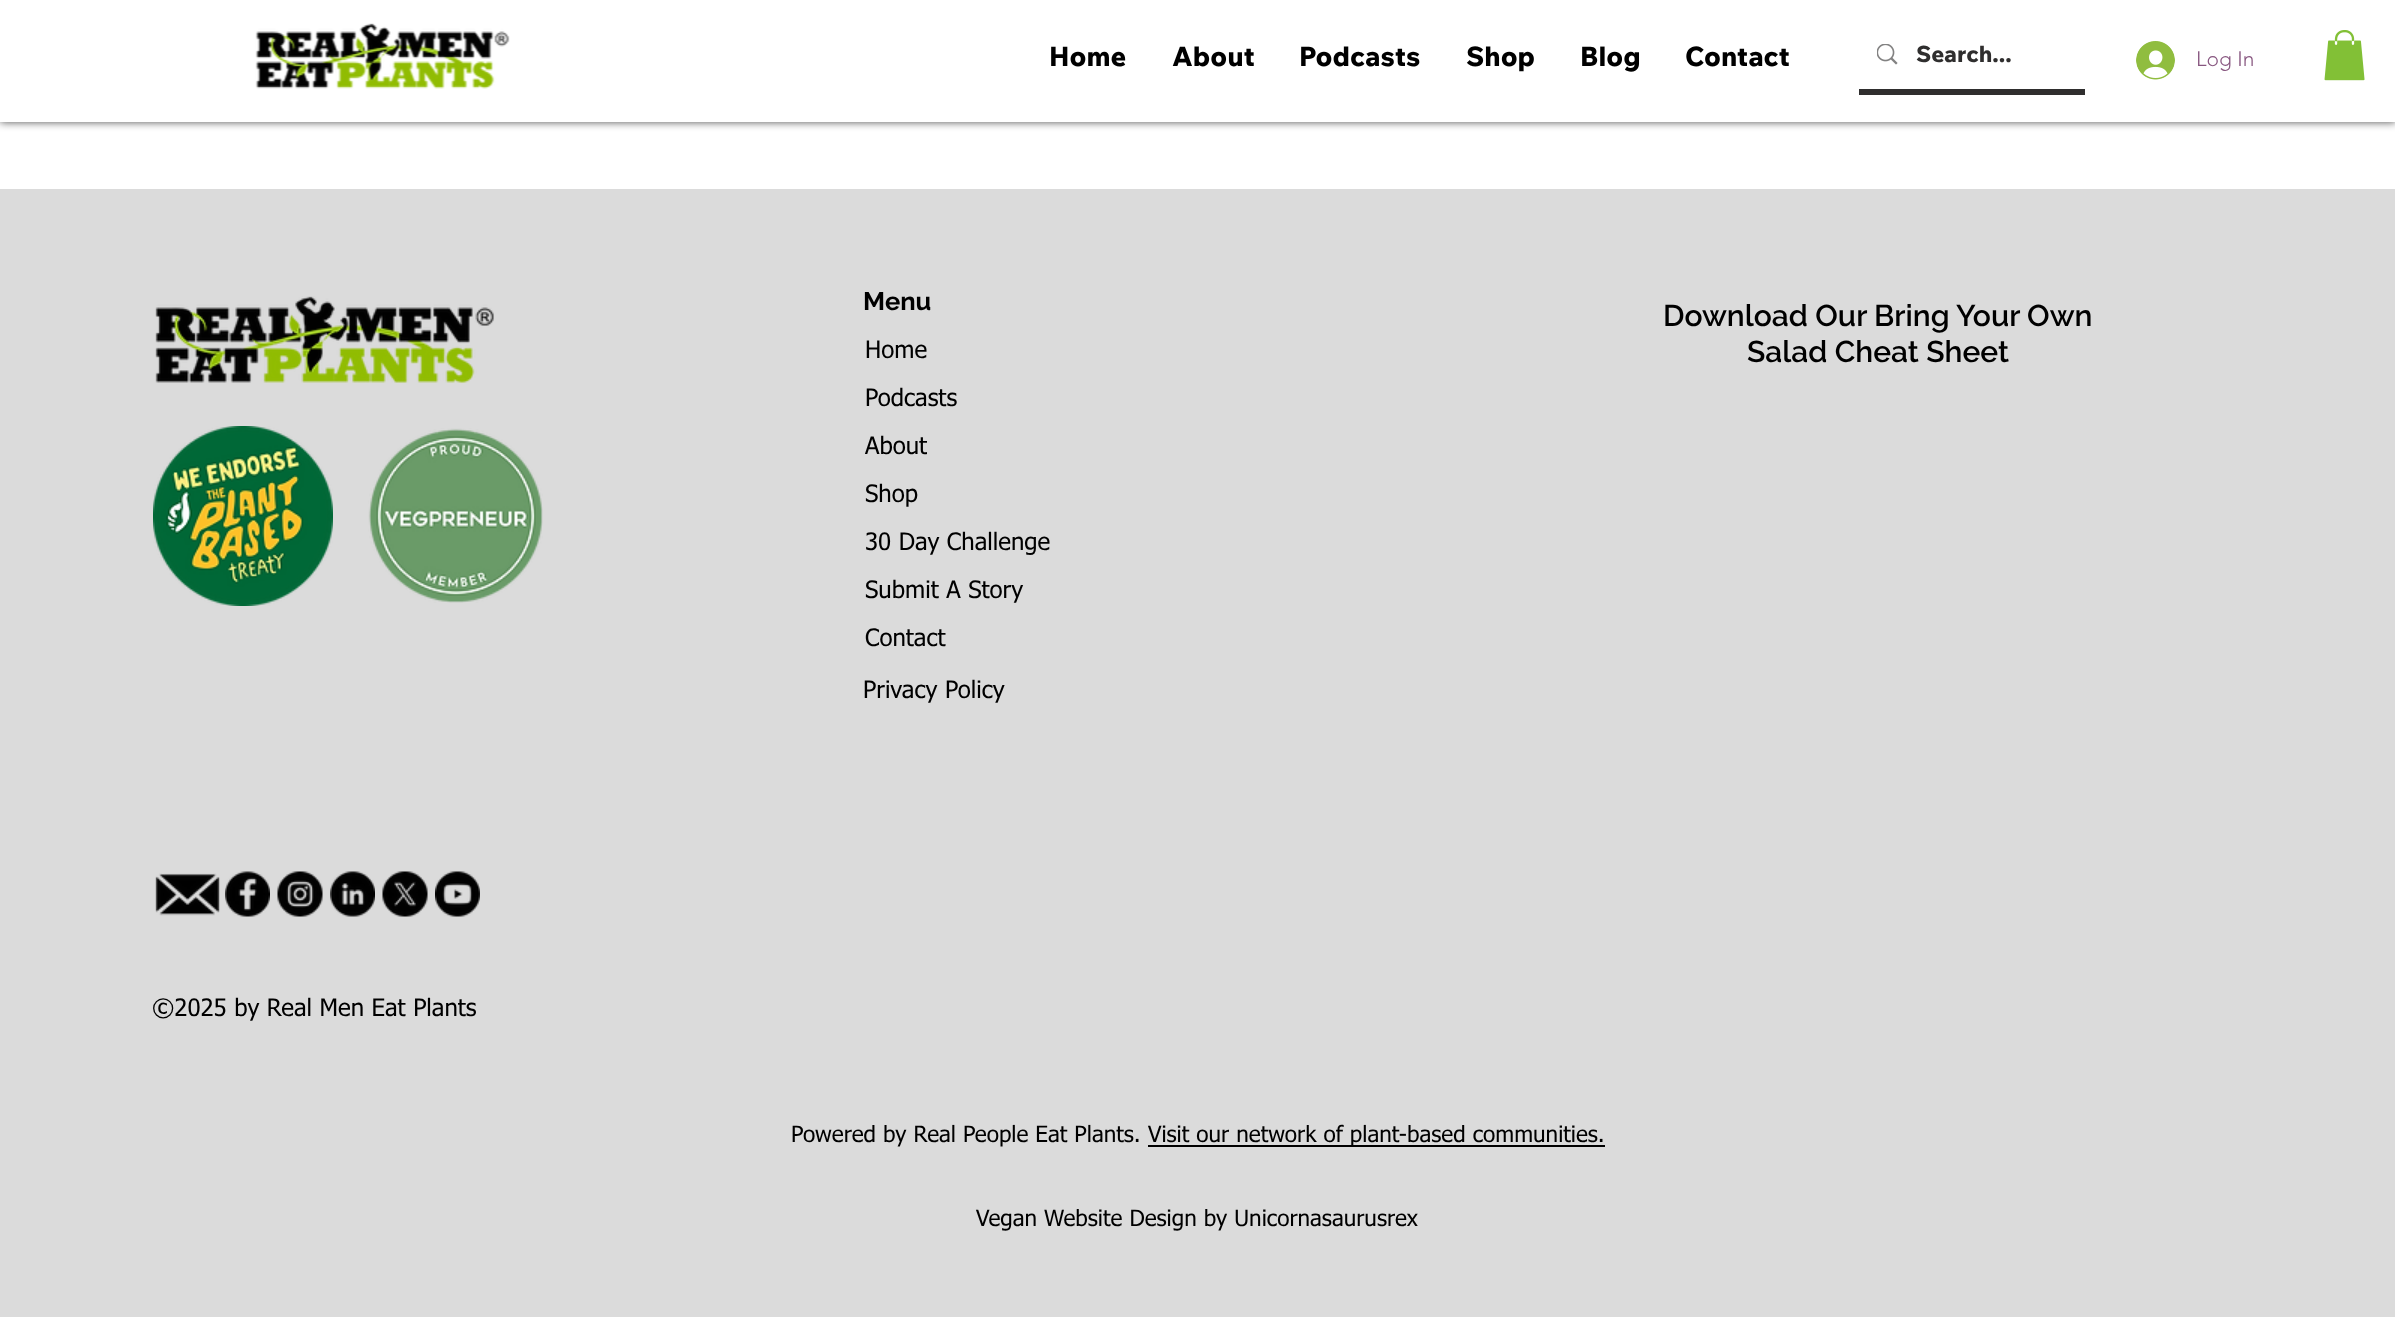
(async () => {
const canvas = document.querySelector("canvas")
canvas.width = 2395
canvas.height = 1317
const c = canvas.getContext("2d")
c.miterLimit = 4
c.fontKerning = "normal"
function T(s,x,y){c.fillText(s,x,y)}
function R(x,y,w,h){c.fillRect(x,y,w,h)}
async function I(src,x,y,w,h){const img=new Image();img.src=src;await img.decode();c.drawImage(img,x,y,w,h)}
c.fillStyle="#dbdbdb"
R(0,0,2395,1317)
c.fillStyle="#fff"
R(0,122,2395,67)
c.fillStyle="#000000b3"
c.filter="blur(4px)"
c.beginPath()
c.rect(0,0,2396,122)
c.fill()
c.filter="none"
c.fillStyle="#fff"
R(0,0,2395,122)
await I("1.png",255,23,255,66)
c.font="800 27px Wix Madefor Text"
c.fillStyle="#000"
T("Home",1049,66)
T("About",1172,66)
T("Podcasts",1299,66)
T("Shop",1466,66)
T("Blog",1580,66)
T("Contact",1685,66)
c.fillStyle="#2f2e2e"
R(1859,89,226,6)
await I("2.png",1877,44,21,21)
c.font="800 22.5px Wix Madefor Text"
T("Search...",1916,62)
await I("3.png",2136,41,39,39)
c.font="300 21px 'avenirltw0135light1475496'"
c.fillStyle="#885780"
T("Log In",2196,66)
await I("4.png",2324,30,41,51)
c.font="bold 25.5px Raleway"
c.fillStyle="#000"
T("Menu",863,310)
c.font="24px tahoma"
T("Home",865,358)
T("Podcasts",865,406)
T("About",865,454)
T("Shop",865,502)
T("30 Day Challenge",865,550)
T("Submit A Story",865,598)
T("Contact",865,646)
T("Privacy Policy",863,698)
c.font="600 30px Raleway"
T("Download Our Bring Your Own",1663,326)
T("Salad Cheat Sheet",1747,362)
await I("5.png",155,296,339,87)
await I("6.png",153,426,180,180)
await I("7.png",368,428,175,175)
await I("8.png",155,873,65,43)
await I("9.png",225,871,45,46)
await I("10.png",277,871,46,46)
await I("11.png",330,871,45,46)
await I("12.png",382,871,46,46)
await I("13.png",435,871,45,46)
c.font="24px tahoma"
T("©2025 by Real Men Eat Plants",152,1016)
c.font="22.5px tahoma"
T("Powered by Real People Eat Plants.",791,1142)
R(1148,1145,457,2)
T("Visit our network of plant-based communities.",1148,1142)
T("Vegan Website Design by Unicornasaurusrex",976,1226)
})()
